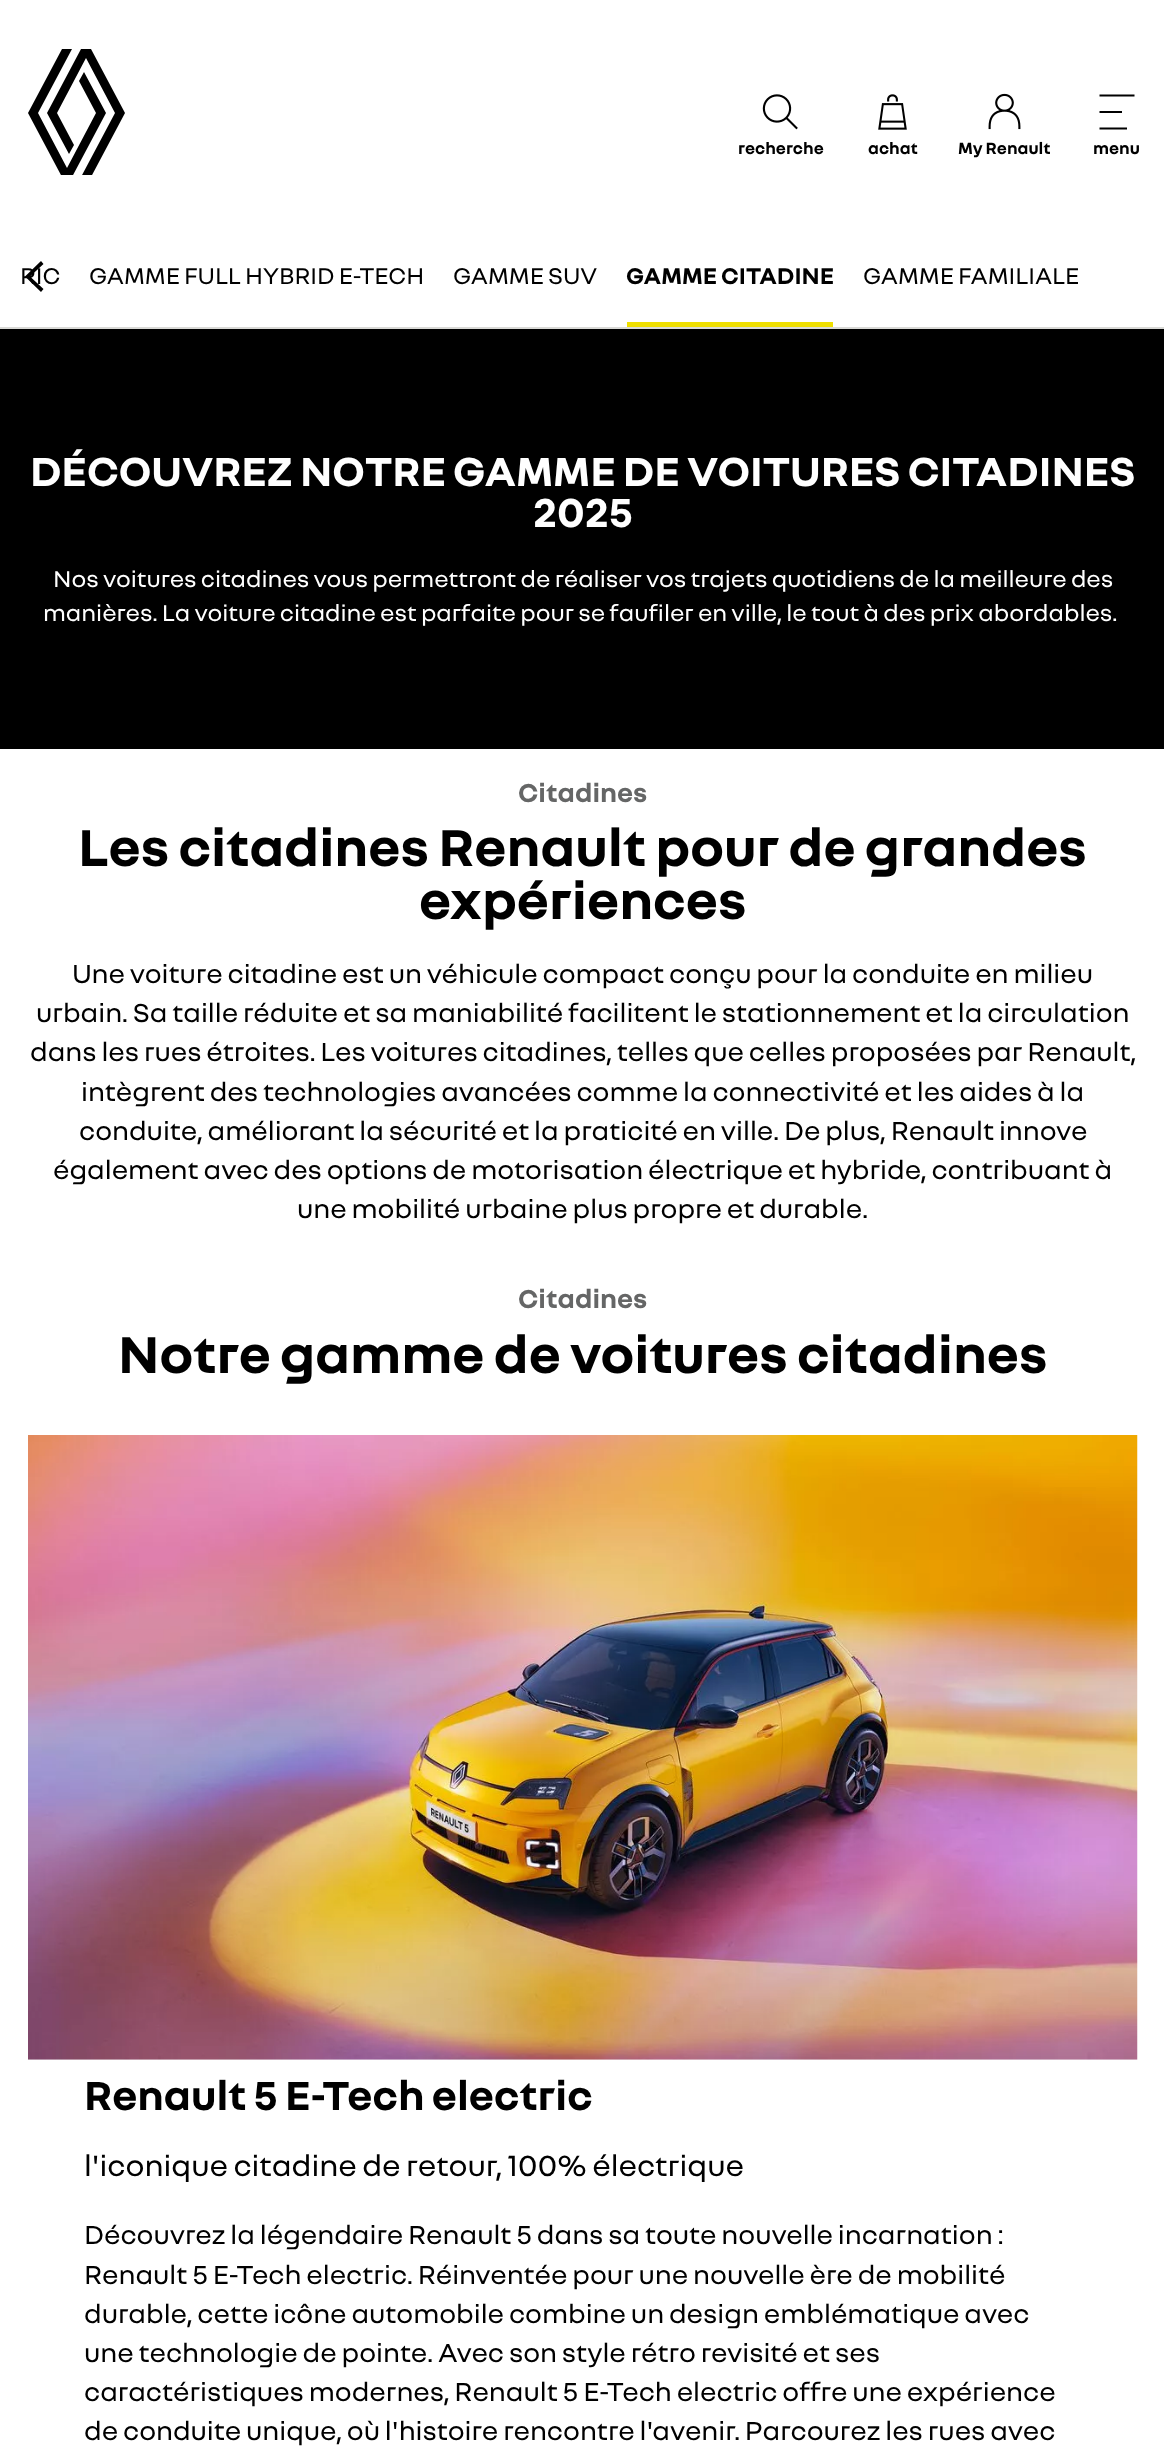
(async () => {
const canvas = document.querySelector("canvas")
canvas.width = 1164
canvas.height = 2456
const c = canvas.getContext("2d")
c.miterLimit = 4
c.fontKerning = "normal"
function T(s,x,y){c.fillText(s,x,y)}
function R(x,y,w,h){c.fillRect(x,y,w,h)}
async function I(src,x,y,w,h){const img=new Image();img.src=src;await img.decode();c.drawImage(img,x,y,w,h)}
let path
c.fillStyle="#fff"
R(0,0,1164,2456)
c.save()
c.beginPath()
c.rect(28,49,98,126)
c.clip()
c.fillStyle="#000"
path = new Path2D("M106 113l-34 64h-10l-34-64l34-64h10l-34 64l29 55l29-55l-17-32l5-9zm-15-64h-10l-34 64l22 41l5-9l-17-32l29-55l29 55l-34 64h10l34-64z")
c.fill(path)
c.restore()
await I("1.png",762,94,36,36)
c.font="bold 17.5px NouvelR"
c.fillStyle="#000"
T("recherche",738,154)
await I("2.png",878,94,29,36)
T("achat",868,154)
await I("3.png",988,93,33,37)
T("My Renault",958,154)
path = new Path2D("M1134.5 94.5v2h-35v-2zm-12.5 16.5h-22.5v2h22.5zm-22.5 18.5h27.5v-2h-27.5z")
c.fill(path)
T("menu",1093,154)
c.fillStyle="#d9d9d6"
R(0,327,1164,2)
c.fillStyle="#000"
path = new Path2D("M41 292l-16-15.5l16-15.5l2.5 3l-13.5 12.5l13.5 12.5z")
c.fill(path)
c.font="24.5px NouvelR"
T("RIC",20,284)
T("GAMME FULL HYBRID E-TECH",89,284)
T("GAMME SUV",453,284)
c.font="bold 24.5px NouvelR"
T("GAMME CITADINE",626,284)
c.fillStyle="#efdf00"
R(627,322,206,5)
c.font="24.5px NouvelR"
c.fillStyle="#000"
T("GAMME FAMILIALE",863,284)
R(0,329,1164,420)
c.font="bold 43.75px NouvelR"
c.fillStyle="#fff"
T("DÉCOUVREZ NOTRE GAMME DE VOITURES CITADINES",30,486)
T("2025",533,527)
c.font="24.5px NouvelR"
T("Nos voitures citadines vous permettront de réaliser vos trajets quotidiens de la meilleure des",53,587)
T("manières. La voiture citadine est parfaite pour se faufiler en ville, le tout à des prix abordables.",43,621)
c.font="bold 28px NouvelR"
c.fillStyle="#656666"
T("Citadines",518,802)
c.font="bold 56px NouvelR"
c.fillStyle="#000"
T("Les citadines Renault pour de grandes",78,866)
T("expériences",419,919)
c.font="28px NouvelR"
T("Une voiture citadine est un véhicule compact conçu pour la conduite en milieu",72,983)
T("urbain. Sa taille réduite et sa maniabilité facilitent le stationnement et la circulation",36,1022)
T("dans les rues étroites. Les voitures citadines, telles que celles proposées par Renault,",30,1061)
T("intègrent des technologies avancées comme la connectivité et les aides à la",81,1101)
T("conduite, améliorant la sécurité et la praticité en ville. De plus, Renault innove",79,1140)
T("également avec des options de motorisation électrique et hybride, contribuant à",53,1179)
T("une mobilité urbaine plus propre et durable.",297,1218)
c.font="bold 28px NouvelR"
c.fillStyle="#656666"
T("Citadines",518,1308)
c.font="bold 56px NouvelR"
c.fillStyle="#000"
T("Notre gamme de voitures citadines",118,1373)
await I("4.png",28,1435,1110,625)
c.font="bold 43.75px NouvelR"
T("Renault 5 E-Tech electric",84,2110)
c.font="31.5px NouvelR"
T("l'iconique citadine de retour, 100% électrique",84,2176)
c.font="28px NouvelR"
T("Découvrez la légendaire Renault 5 dans sa toute nouvelle incarnation :",84,2244)
T("Renault 5 E-Tech electric. Réinventée pour une nouvelle ère de mobilité",84,2284)
T("durable, cette icône automobile combine un design emblématique avec",84,2323)
T("une technologie de pointe. Avec son style rétro revisité et ses",84,2362)
T("caractéristiques modernes, Renault 5 E-Tech electric offre une expérience",84,2401)
T("de conduite unique, où l'histoire rencontre l'avenir. Parcourez les rues avec",84,2440)
})()
